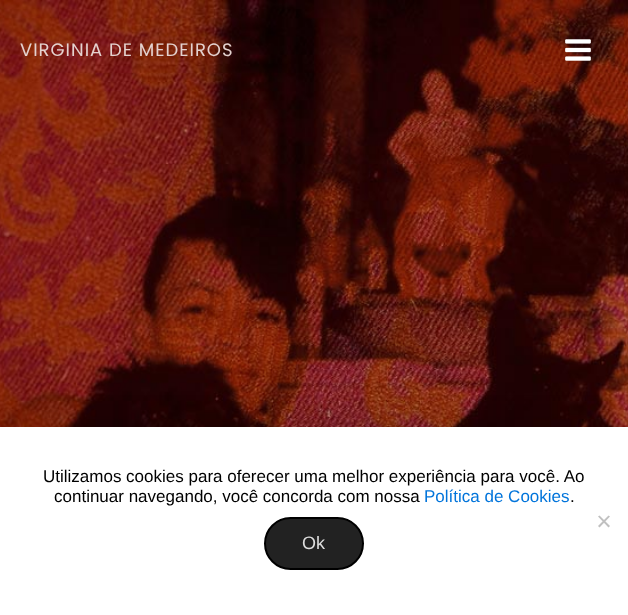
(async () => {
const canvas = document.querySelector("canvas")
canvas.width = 628
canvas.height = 615
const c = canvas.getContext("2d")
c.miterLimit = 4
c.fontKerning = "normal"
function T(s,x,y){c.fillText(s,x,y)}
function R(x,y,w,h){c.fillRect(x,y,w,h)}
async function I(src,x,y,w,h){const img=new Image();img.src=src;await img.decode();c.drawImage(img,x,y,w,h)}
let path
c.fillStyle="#fff"
R(0,0,628,615)
await I("1.png",0,0,628,427)
c.letterSpacing="1px"
c.font="18px Poppins"
c.fillStyle="#e4d2cf"
T("VIRGINIA DE MEDEIROS",20,56)
await I("2.png",565,39,26,22)
c.save()
c.beginPath()
c.rect(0,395,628,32)
c.clip()
c.fillStyle="#00000033"
c.filter="blur(25px)"
c.beginPath()
c.rect(0,427,628,188)
c.fill()
c.filter="none"
c.restore()
c.letterSpacing="0px"
c.font="17px Liberation Sans"
c.fillStyle="#000"
T("Utilizamos cookies para oferecer uma melhor experiência para você. Ao",43,482)
T("continuar navegando, você concorda com nossa",54,502)
c.fillStyle="#0074db"
T("Política de Cookies",424,502)
c.fillStyle="#000"
T(".",570,502)
c.fillStyle="#c0c0c0"
path = new Path2D("M608.5 515.5l1.5 1l-10.5 11l-1.5-1.5z")
c.fill(path)
path = new Path2D("M598 516.5l1.5-1l10.5 10.5l-1.5 1.5z")
c.fill(path)
c.fillStyle="#222"
c.beginPath()
c.roundRect(265,518,98,51,25.5)
c.fill()
c.strokeStyle="#000"
c.lineWidth=2
c.stroke()
c.font="18px Liberation Sans"
c.fillStyle="#ddd"
T("Ok",302,549)
})()
